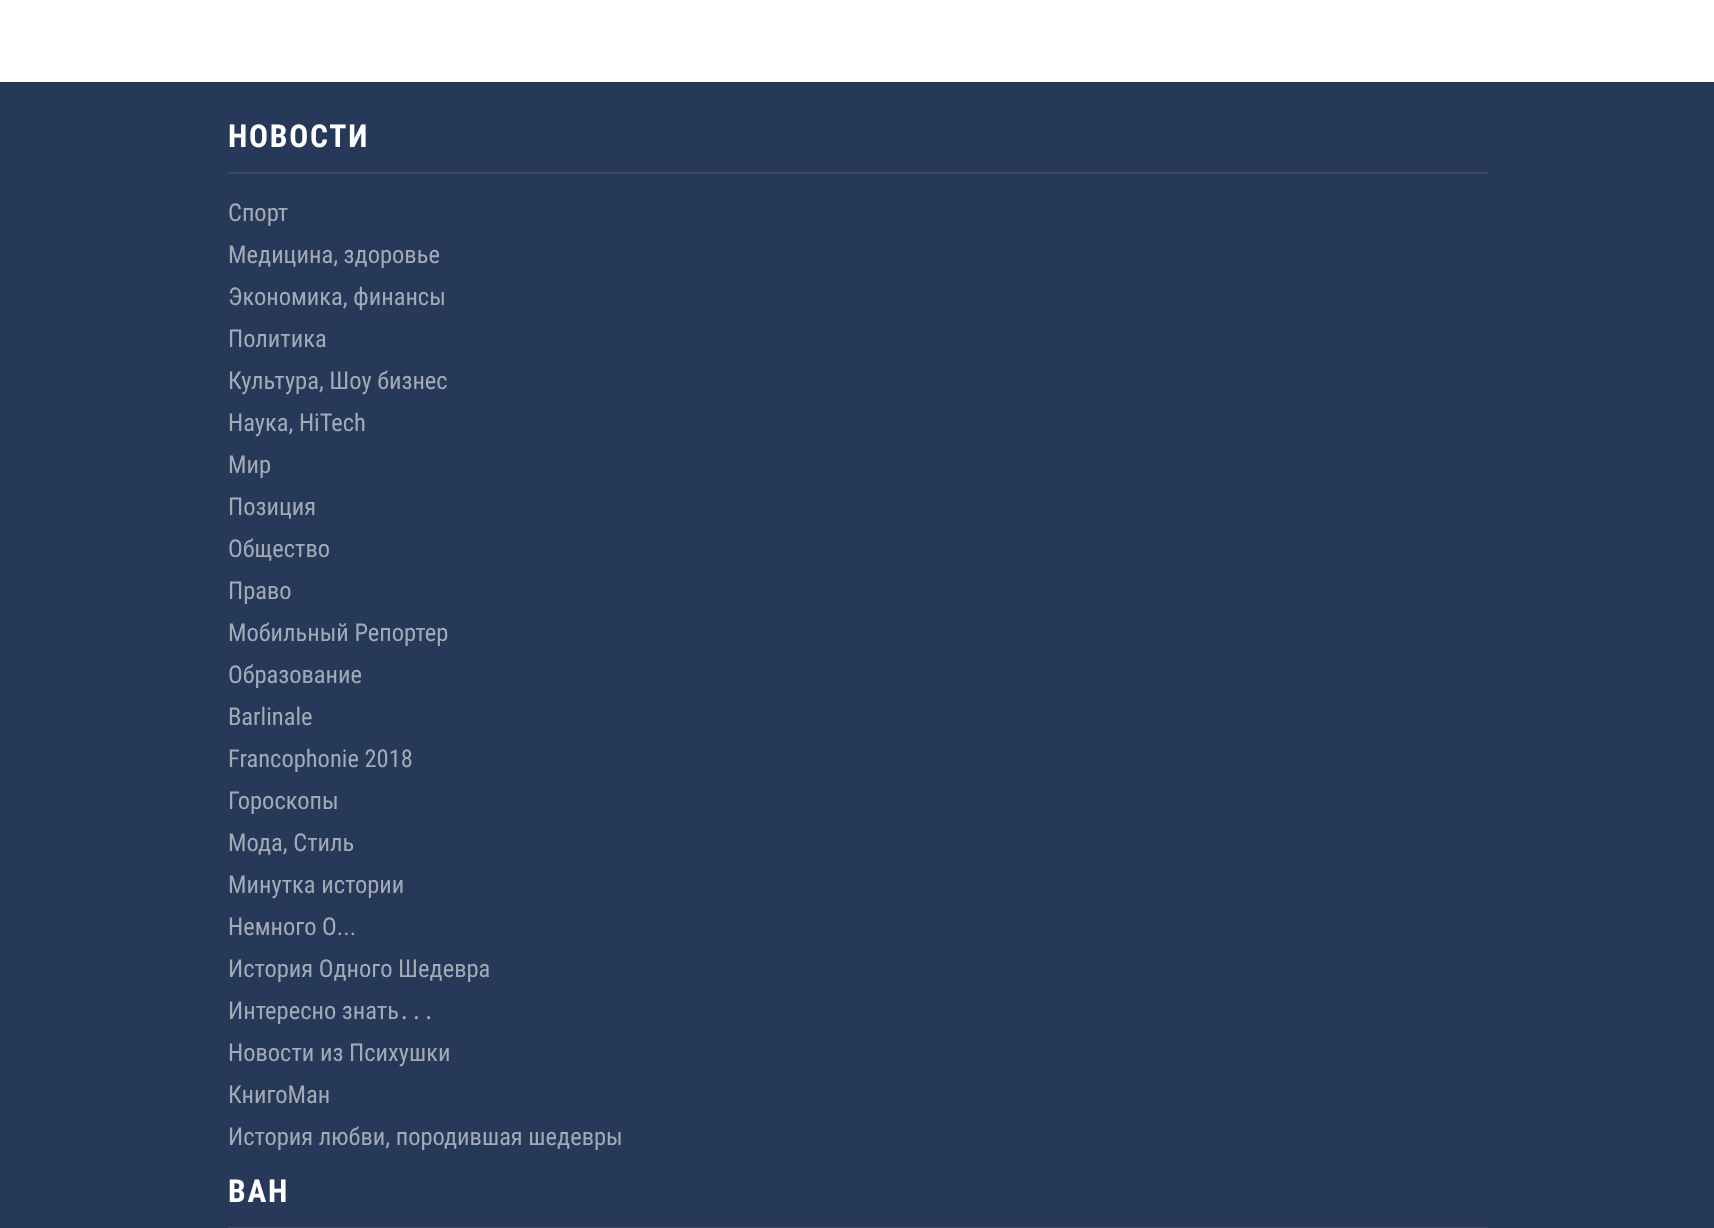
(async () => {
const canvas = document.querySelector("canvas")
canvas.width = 1714
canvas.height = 1228
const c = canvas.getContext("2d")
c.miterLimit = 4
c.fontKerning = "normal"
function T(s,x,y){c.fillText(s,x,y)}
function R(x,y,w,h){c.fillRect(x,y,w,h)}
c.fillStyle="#fff"
R(0,0,1714,1228)
c.fillStyle="#273958"
R(0,82,1714,1146)
c.fillStyle="#384864"
R(228,172,1260,2)
c.letterSpacing="1.75px"
c.font="bold 31.5px Roboto Condensed"
c.fillStyle="#fff"
T("НОВОСТИ",228,147)
c.letterSpacing="0px"
c.font="24.5px Roboto Condensed"
c.fillStyle="#a2aab7"
T("Спорт",228,221)
T("Медицина, здоровье",228,263)
T("Экономика, финансы",228,305)
T("Политика",228,347)
T("Культура, Шоу бизнес",228,389)
T("Наука, HiTech",228,431)
T("Мир",228,473)
T("Позиция",228,515)
T("Общество",228,557)
T("Право",228,599)
T("Мобильный Репортер",228,641)
T("Образование",228,683)
T("Barlinale",228,725)
T("Francophonie 2018",228,767)
T("Гороскопы",228,809)
T("Мода, Стиль",228,851)
T("Минутка истории",228,893)
T("Немного О...",228,935)
T("История Одного Шедевра",228,977)
T("Интересно знать",228,1019)
c.font="24.5px Noto Sans"
T("․․․",398,1019)
c.font="24.5px Roboto Condensed"
T("Новости из Психушки",228,1061)
T("КнигоМан",228,1103)
T("История любви, породившая шедевры",228,1145)
c.fillStyle="#384864"
R(228,1227,1260,1)
c.letterSpacing="1.75px"
c.font="bold 31.5px Roboto Condensed"
c.fillStyle="#fff"
T("ВАН",228,1202)
})()
